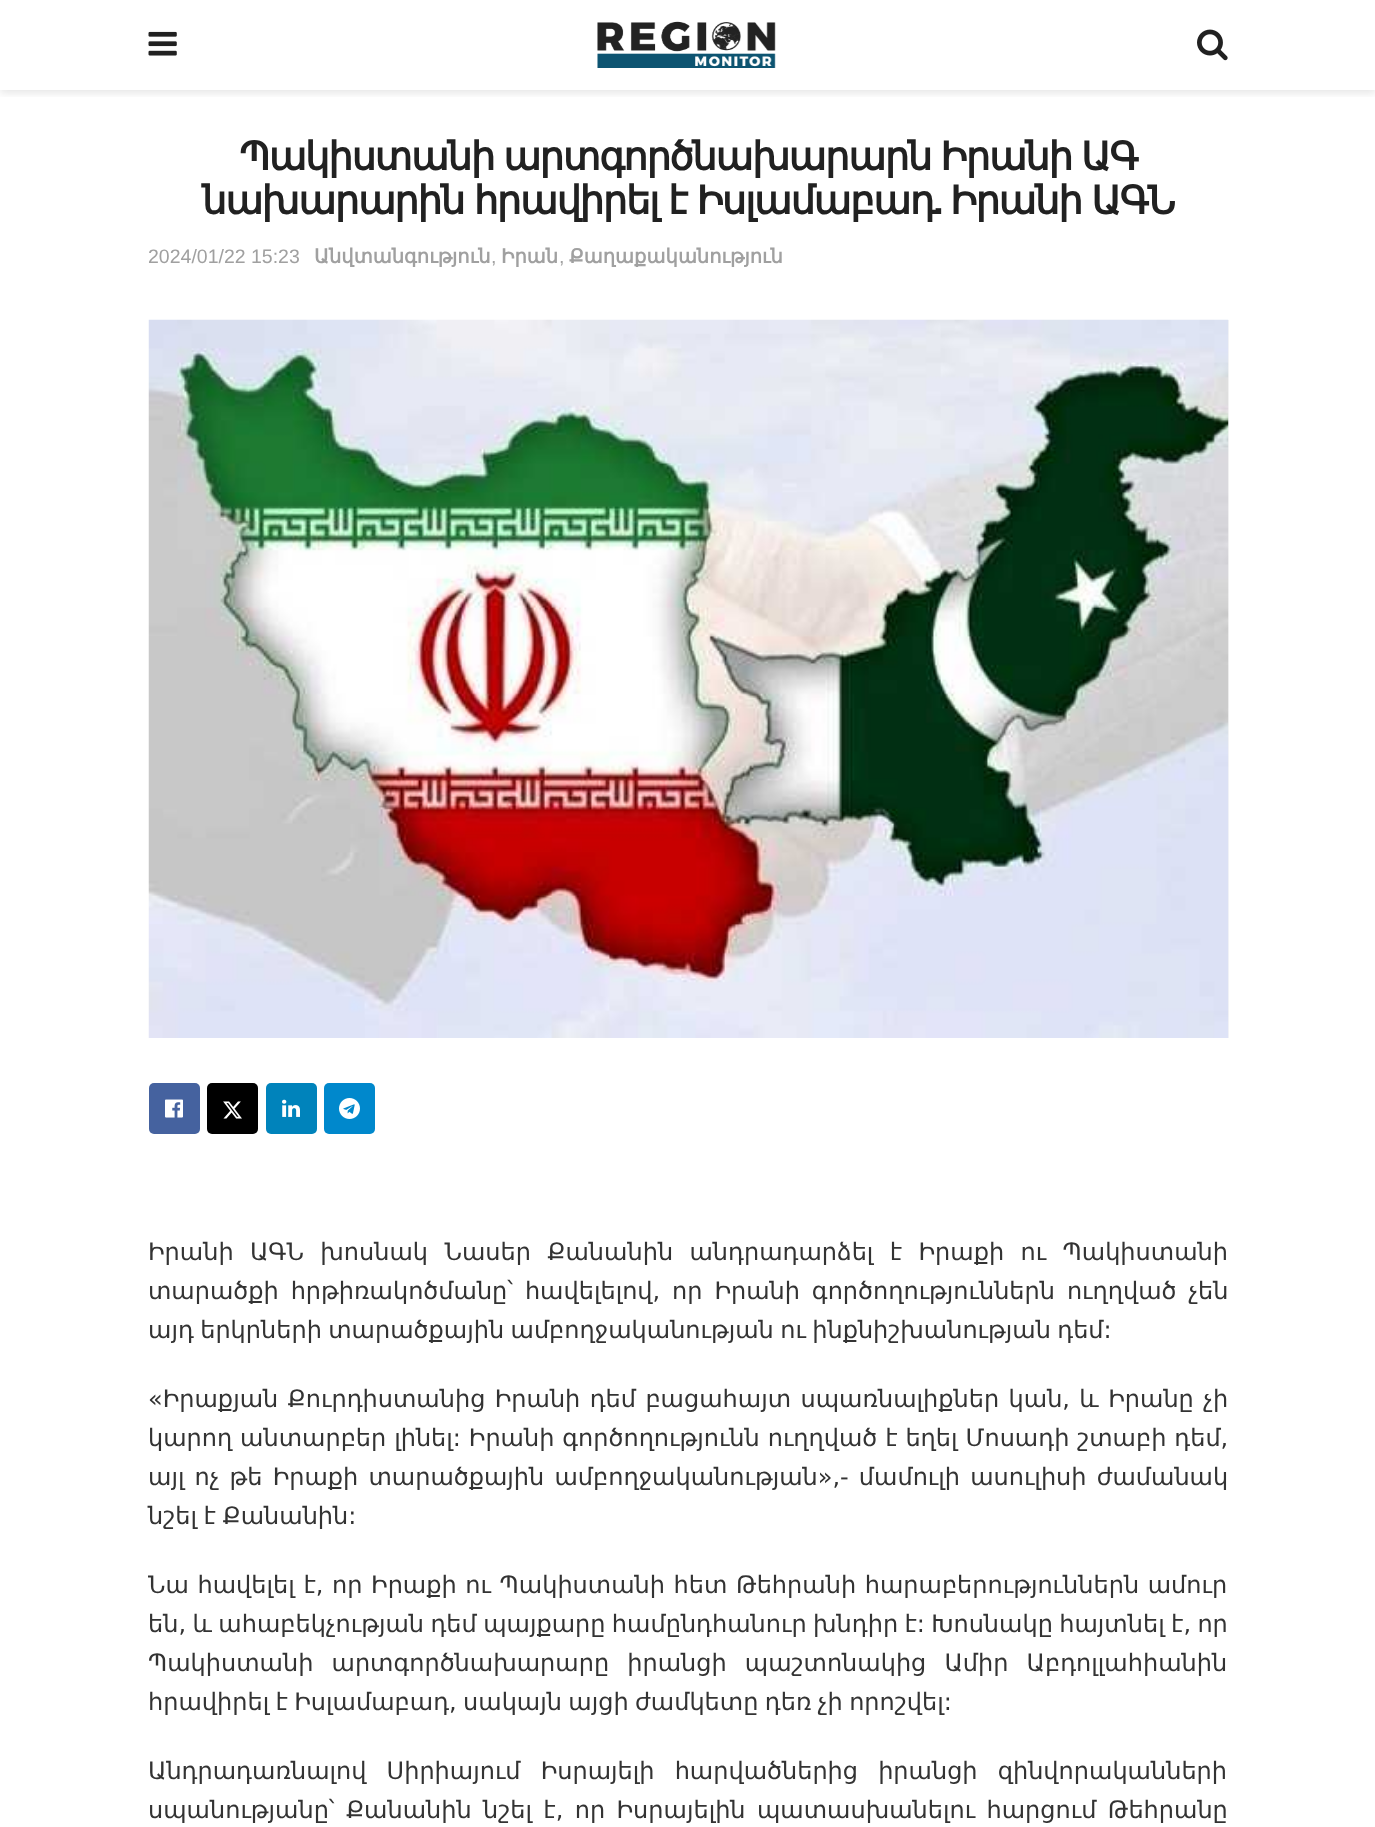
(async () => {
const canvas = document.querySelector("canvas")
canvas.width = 1375
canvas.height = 1827
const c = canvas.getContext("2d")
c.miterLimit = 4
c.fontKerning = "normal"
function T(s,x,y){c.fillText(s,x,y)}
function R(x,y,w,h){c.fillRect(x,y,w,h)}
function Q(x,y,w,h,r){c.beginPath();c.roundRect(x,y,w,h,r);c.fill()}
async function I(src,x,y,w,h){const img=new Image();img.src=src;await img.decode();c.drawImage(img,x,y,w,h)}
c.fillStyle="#fff"
R(0,0,1375,1827)
c.save()
c.beginPath()
c.rect(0,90,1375,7)
c.clip()
c.fillStyle="#0000001a"
c.filter="blur(4.5px)"
c.beginPath()
c.rect(0,3,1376,90)
c.fill()
c.filter="none"
c.restore()
await I("1.png",148,31,29,25)
await I("2.png",597,21,179,47)
await I("3.png",1197,29,31,32)
c.letterSpacing="-1.55px"
c.wordSpacing="-1.5px"
c.font="bold 39px DejaVu Sans"
c.fillStyle="#212121"
T("Պակիստանի արտգործնախարարն Իրանի ԱԳ",239,170)
c.wordSpacing="-1px"
T("նախարարին հրավիրել է Իսլամաբադ",202,214)
c.wordSpacing="0px"
c.font="bold 39px Liberation Sans"
T(".",933,214)
c.wordSpacing="-1px"
c.font="bold 39px DejaVu Sans"
T("Իրանի ԱԳՆ",950,214)
c.letterSpacing="0px"
c.wordSpacing="0px"
c.font="19.5px Liberation Sans"
c.fillStyle="#a0a0a0"
T("2024/01/22 15:23",148,263)
c.font="bold 19.5px DejaVu Sans"
T("Անվտանգություն",314,263)
c.font="19.5px Liberation Sans"
T(",",491,263)
c.font="bold 19.5px DejaVu Sans"
T("Իրան",501,263)
c.font="19.5px Liberation Sans"
T(",",559,263)
c.font="bold 19.5px DejaVu Sans"
T("Քաղաքականություն",569,263)
c.fillStyle="#f7f7f7"
R(1228,320,1,718)
await I("4.png",148,319,1081,719)
c.fillStyle="#45629f"
Q(149,1083,51,51,5)
await I("5.png",165,1099,18,19)
c.fillStyle="#000"
Q(207,1083,51,51,5)
await I("6.png",223,1101,19,18)
c.fillStyle="#0083bb"
Q(266,1083,51,51,5)
await I("7.png",282,1099,18,18)
c.fillStyle="#08c"
Q(324,1083,51,51,5)
await I("8.png",339,1098,21,21)
c.wordSpacing="8.75px"
c.font="24px DejaVu Sans"
c.fillStyle="#333"
T("Իրանի ԱԳՆ խոսնակ Նասեր Քանանին անդրադարձել է Իրաքի ու Պակիստանի",148,1260)
c.wordSpacing="4.25px"
T("տարածքի հրթիռակոծմանը՝ հավելելով, որ Իրանի գործողություններն ուղղված չեն",148,1299)
c.wordSpacing="-1.25px"
T("այդ երկրների տարածքային ամբողջականության ու ինքնիշխանության դեմ:",148,1338)
c.wordSpacing="1.75px"
T("«Իրաքյան Քուրդիստանից Իրանի դեմ բացահայտ սպառնալիքներ կան, և Իրանը չի",148,1407)
c.wordSpacing="0.25px"
T("կարող անտարբեր լինել: Իրանի գործողությունն ուղղված է եղել Մոսադի շտաբի դեմ,",148,1446)
c.wordSpacing="2.5px"
T("այլ ոչ թե Իրաքի տարածքային ամբողջականության»,- մամուլի ասուլիսի ժամանակ",148,1485)
c.wordSpacing="-1px"
T("նշել է Քանանին:",148,1524)
c.wordSpacing="1px"
T("Նա հավելել է, որ Իրաքի ու Պակիստանի հետ Թեհրանի հարաբերություններն ամուր",148,1593)
c.wordSpacing="-1.25px"
T("են, և ահաբեկչության դեմ պայքարը համընդհանուր խնդիր է: Խոսնակը հայտնել է, որ",148,1632)
c.wordSpacing="10.5px"
T("Պակիստանի արտգործնախարարը իրանցի պաշտոնակից Ամիր Աբդոլլահիանին",148,1671)
c.wordSpacing="-1.25px"
T("հրավիրել է Իսլամաբադ, սակայն այցի ժամկետը դեռ չի որոշվել:",148,1710)
c.wordSpacing="12.5px"
T("Անդրադառնալով Սիրիայում Իսրայելի հարվածներից իրանցի զինվորականների",148,1779)
c.wordSpacing="3.75px"
T("սպանությանը՝ Քանանին նշել է, որ Իսրայելին պատասխանելու հարցում Թեհրանը",148,1818)
})()
